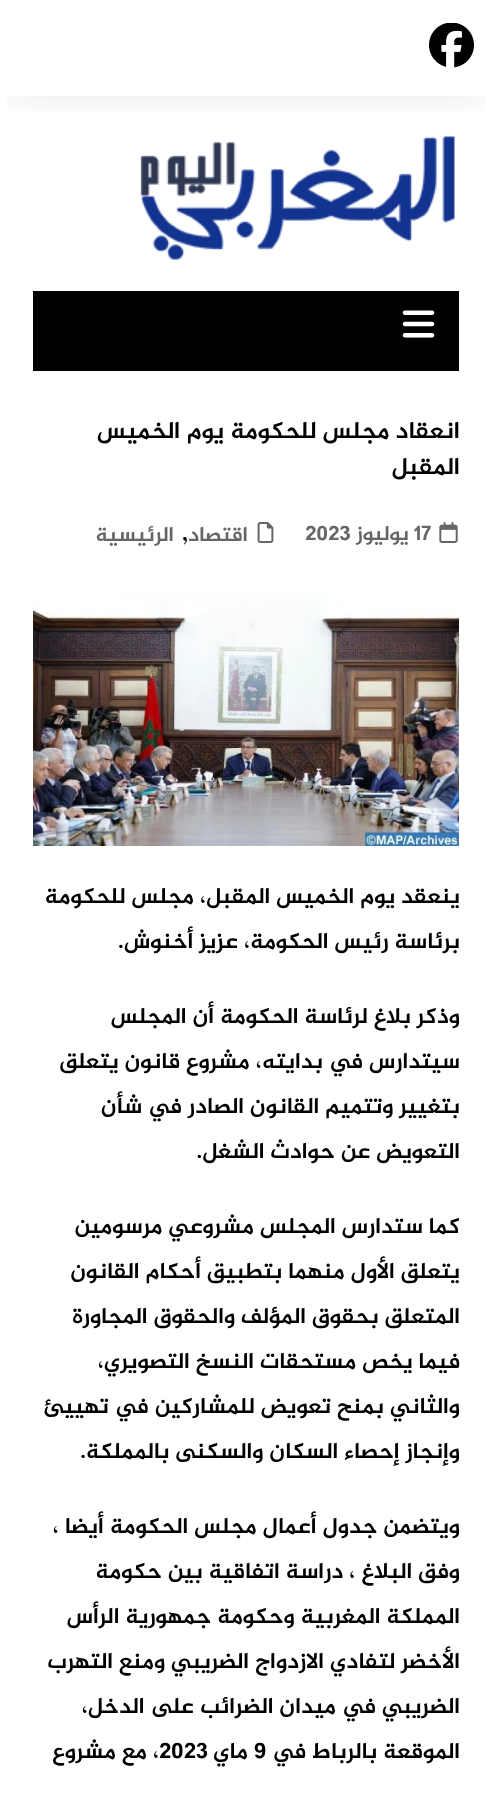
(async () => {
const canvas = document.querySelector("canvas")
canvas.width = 491
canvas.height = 1799
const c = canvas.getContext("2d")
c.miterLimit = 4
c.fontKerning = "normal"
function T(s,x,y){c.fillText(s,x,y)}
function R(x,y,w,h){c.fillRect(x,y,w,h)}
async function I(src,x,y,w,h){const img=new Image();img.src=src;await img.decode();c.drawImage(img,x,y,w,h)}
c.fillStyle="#fff"
R(0,0,491,1799)
c.save()
c.beginPath()
c.rect(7,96,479,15)
c.clip()
c.fillStyle="#0000001a"
c.filter="blur(22.5px)"
c.beginPath()
c.rect(8,11,477,81)
c.fill()
c.filter="none"
c.restore()
await I("1.png",429,23,45,45)
await I("2.png",140,136,315,124)
c.fillStyle="#000"
R(33,291,426,80)
await I("3.png",402,310,33,28)
c.direction="rtl"
c.font="bold 24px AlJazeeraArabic"
c.fillStyle="#010101"
T("انعقاد مجلس للحكومة يوم الخميس",460,438)
T("المقبل",460,474)
await I("4.png",439,522,19,21)
c.direction="ltr"
c.font="bold 21px AlJazeeraArabic"
c.fillStyle="#666"
T("17",414,540)
c.direction="rtl"
T("يوليوز",409,540)
c.direction="ltr"
T("2023",305,540)
await I("5.png",257,522,17,21)
c.direction="rtl"
T("اقتصاد",248,541)
c.direction="ltr"
c.font="bold 24px AlJazeeraArabic"
c.fillStyle="#010101"
T(",",182,540)
c.direction="rtl"
c.font="bold 21px AlJazeeraArabic"
c.fillStyle="#666"
T("الرئيسية",174,541)
await I("6.png",33,593,426,253)
c.font="bold 22.5px AlJazeeraArabic"
c.fillStyle="#010101"
T("ينعقد يوم الخميس المقبل، مجلس للحكومة",460,903)
T("برئاسة رئيس الحكومة، عزيز أخنوش.",460,948)
T("وذكر بلاغ لرئاسة الحكومة أن المجلس",460,1023)
T("سيتدارس في بدايته، مشروع قانون يتعلق",460,1068)
T("بتغيير وتتميم القانون الصادر في شأن",460,1113)
T("التعويض عن حوادث الشغل.",460,1158)
T("كما ستدارس المجلس مشروعي مرسومين",460,1233)
T("يتعلق الأول منهما بتطبيق أحكام القانون",460,1278)
T("المتعلق بحقوق المؤلف والحقوق المجاورة",460,1323)
T("فيما يخص مستحقات النسخ التصويري،",460,1368)
T("والثاني بمنح تعويض للمشاركين في تهييئ",460,1413)
T("وإنجاز إحصاء السكان والسكنى بالمملكة.",460,1458)
T("ويتضمن جدول أعمال مجلس الحكومة أيضا ،",460,1533)
T("وفق البلاغ ، دراسة اتفاقية بين حكومة",460,1578)
T("المملكة المغربية وحكومة جمهورية الرأس",460,1623)
T("الأخضر لتفادي الازدواج الضريبي ومنع التهرب",460,1668)
T("الضريبي في ميدان الضرائب على الدخل،",460,1713)
T("الموقعة بالرباط في",460,1758)
c.direction="ltr"
T("9",254,1758)
c.direction="rtl"
T("ماي",248,1758)
c.direction="ltr"
T("2023",159,1758)
c.direction="rtl"
T("، مع مشروع",159,1758)
})()
